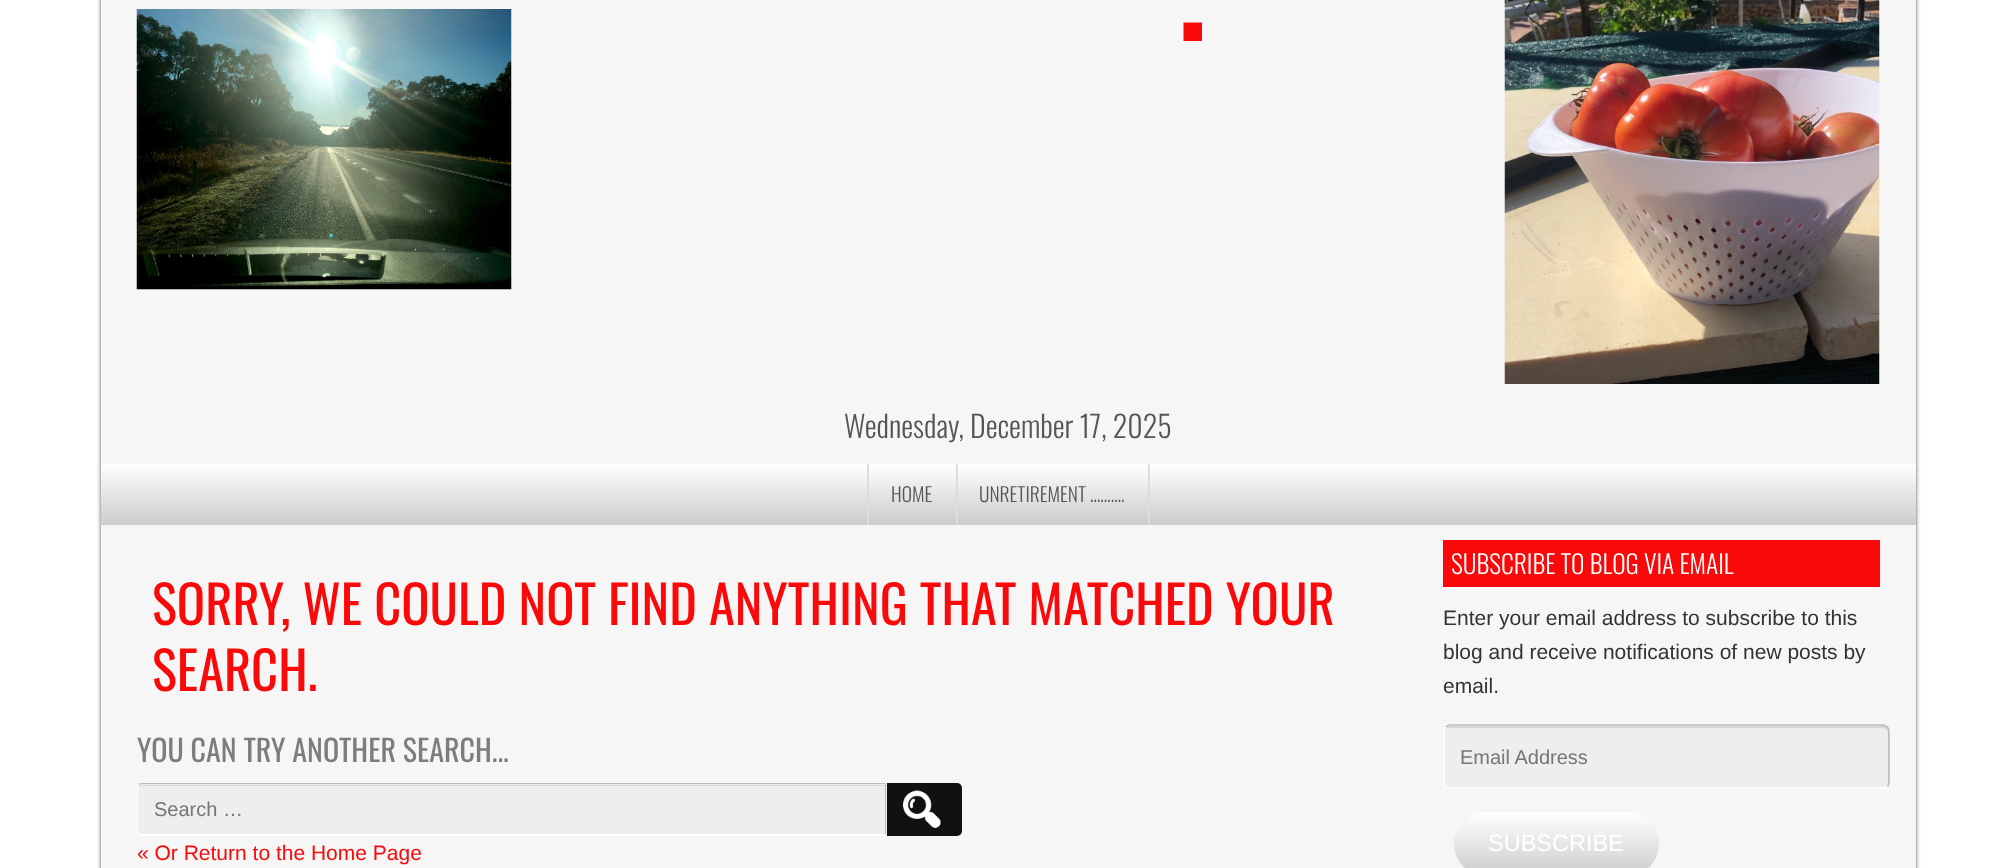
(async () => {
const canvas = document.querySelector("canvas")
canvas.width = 2015
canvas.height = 868
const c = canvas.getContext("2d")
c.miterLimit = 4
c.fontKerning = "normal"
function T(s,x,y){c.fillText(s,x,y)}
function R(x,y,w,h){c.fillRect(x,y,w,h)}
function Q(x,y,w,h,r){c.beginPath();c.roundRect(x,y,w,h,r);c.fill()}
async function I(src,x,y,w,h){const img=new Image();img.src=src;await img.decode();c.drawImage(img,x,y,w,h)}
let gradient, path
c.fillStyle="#fff"
R(0,0,2015,868)
c.fillStyle="#555"
c.filter="blur(2px)"
c.beginPath()
c.rect(101,-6,1815,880)
c.fill()
c.filter="none"
c.fillStyle="#f6f6f6"
R(101,0,1815,868)
await I("1.png",136,9,376,281)
c.font="bold 120px Oswald"
c.fillStyle="#f90909"
T(".",1178,41)
await I("2.png",1504,0,376,384)
c.font="300 30px Oswald"
c.fillStyle="#555"
T("Wednesday, December 17, 2025",844,438)
gradient = c.createLinearGradient(1008,463,1008,525)
gradient.addColorStop(0,"#fff")
gradient.addColorStop(1,"#ccc")
gradient.addColorStop(1,"#f6f6f6")
c.fillStyle = gradient
R(101,464,1815,61)
c.fillStyle="#ddd"
R(867,464,2,61)
R(956,464,2,61)
c.font="300 19.5px Oswald"
c.fillStyle="#555"
T("HOME",891,502)
c.fillStyle="#ddd"
R(1148,464,2,61)
c.fillStyle="#555"
T("UNRETIREMENT ……….",979,502)
c.font="52.5px Oswald"
c.fillStyle="#f90909"
T("SORRY, WE COULD NOT FIND ANYTHING THAT MATCHED YOUR",152,625)
T("SEARCH.",152,691)
c.font="30px Oswald"
c.fillStyle="#7d7d7d"
T("YOU CAN TRY ANOTHER SEARCH...",137,762)
c.fillStyle="#111"
c.beginPath()
c.roundRect(879,783,83,53,[0,5,5,0])
c.fill()
c.fillStyle="#eee"
c.beginPath()
c.roundRect(137,783,750,53,[5,0,0,5])
c.fill()
c.fillStyle="#d6d6d6"
path = new Path2D("M141 786h744v-1h-744c-2 0-3 2-3 4c0-2 1-3 3-3z")
c.fill(path)
c.fillStyle="#bbb"
path = new Path2D("M141 783l-3 1l1 1l2-1h744l1-1z")
c.fill(path)
path = new Path2D("M886 784v51l-1-1v-50z")
c.fill(path)
c.fillStyle="#fff"
path = new Path2D("M139 836l-1-2l1-1l2 1h744l1 1v1z")
c.fill(path)
c.save()
c.beginPath()
c.rect(137,783,825,53)
c.clip()
path = new Path2D("M136 786l2-2l1 1c-2 3-1 9-1 10v37l1 1l-1 1l-2-1z")
c.fill(path)
c.restore()
c.font="20px Liberation Sans"
c.fillStyle="#757575"
T("Search …",154,816)
await I("3.png",903,790,38,38)
c.font="21px Liberation Sans"
c.fillStyle="#f90909"
T("« Or Return to the Home Page",137,860)
R(1443,540,437,47)
c.font="300 25.5px Oswald"
c.fillStyle="#fff"
T("SUBSCRIBE TO BLOG VIA EMAIL",1451,574)
c.font="21px Liberation Sans"
c.fillStyle="#333"
T("Enter your email address to subscribe to this",1443,625)
T("blog and receive notifications of new posts by",1443,659)
T("email.",1443,693)
c.fillStyle="#eee"
Q(1443,725,447,64,8)
c.fillStyle="#d6d6d6"
path = new Path2D("M1450 728h432c4 0 6 2 6 6v49c0 1 0 2-1 3c1-1 2-2 2-4v-50c0-3-3-6-6-6h-432c-3 0-5 2-6 4c1-1 3-2 5-2z")
c.fill(path)
path = new Path2D("M1445.5 727c1.5-1 3-2 5-2h432c2 0 3.5 1 5 2c1 1.5 1.5 3 1.5 5v49.5c0 2-.5 3.5-1.5 5")
c.strokeStyle="#bbb"
c.lineWidth=1.5
c.stroke(path)
path = new Path2D("M1887.5 786.5c-1.5 1-3 1.5-5 1.5h-432c-2 0-3.5-.5-5-1.5c-1-1.5-1.5-3-1.5-5v-49.5c0-2 .5-3.5 1.5-5")
c.strokeStyle="#fff"
c.stroke(path)
c.font="20px Liberation Sans"
c.fillStyle="#757575"
T("Email Address",1460,764)
gradient = c.createLinearGradient(1556,812,1556,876)
gradient.addColorStop(0,"#fff")
gradient.addColorStop(1,"#ccc")
gradient.addColorStop(1,"#f6f6f6")
c.fillStyle = gradient
Q(1454,812,205,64,32)
c.font="23.5px Liberation Sans"
c.fillStyle="#fff"
T("SUBSCRIBE",1488,851)
})()
